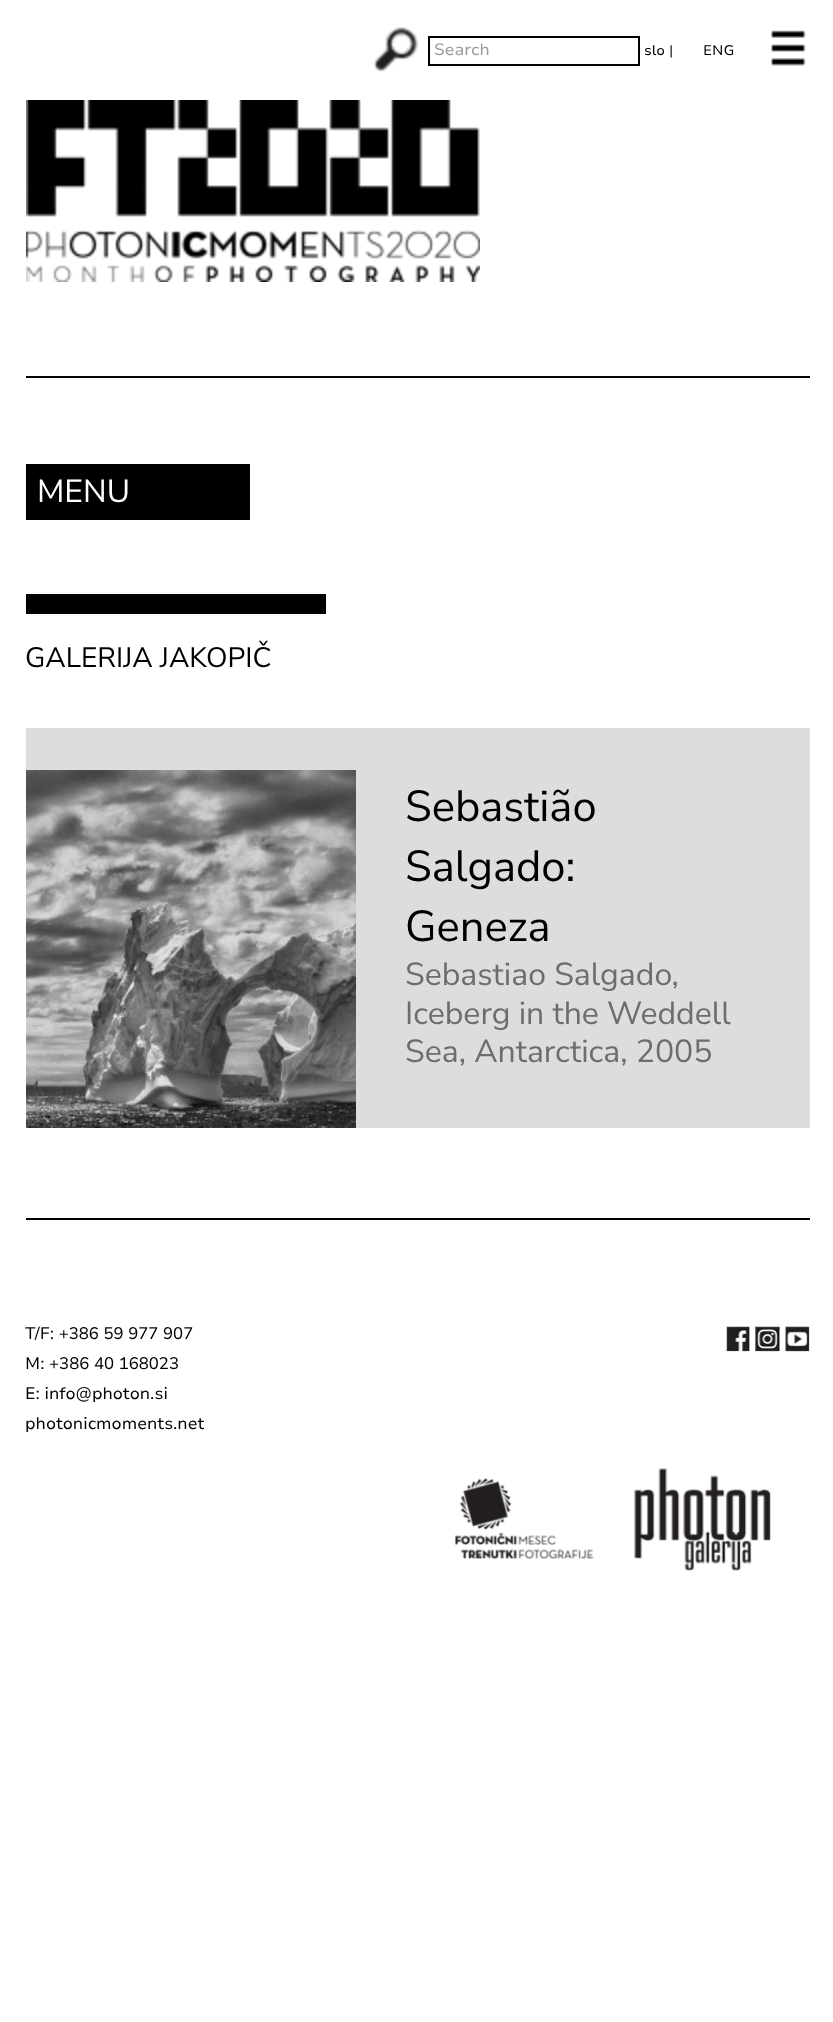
(async () => {
const canvas = document.querySelector("canvas")
canvas.width = 833
canvas.height = 2022
const c = canvas.getContext("2d")
c.miterLimit = 4
c.fontKerning = "normal"
function T(s,x,y){c.fillText(s,x,y)}
function R(x,y,w,h){c.fillRect(x,y,w,h)}
async function I(src,x,y,w,h){const img=new Image();img.src=src;await img.decode();c.drawImage(img,x,y,w,h)}
c.fillStyle="#fff"
R(0,0,833,2022)
c.fillStyle="#000"
R(26,376,784,2)
await I("1.png",373,27,46,45)
c.strokeStyle="#000"
c.lineWidth=2
c.strokeRect(429,37,210,28)
c.font="16.5px Nunito Sans"
c.fillStyle="#999"
T("Search",434,55)
c.font="14px 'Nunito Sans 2'"
c.fillStyle="#000"
T("slo |",644,55)
T("ENG",703,55)
await I("2.png",771,30,35,36)
await I("3.png",26,100,454,182)
R(26,464,224,56)
c.font="32px 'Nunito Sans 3'"
c.fillStyle="#fff"
T("MENU",37,502)
c.fillStyle="#000"
R(26,594,300,20)
c.font="28px 'Nunito Sans 3'"
T("GALERIJA JAKOPIČ",25,667)
c.fillStyle="#ddd"
R(26,728,784,400)
await I("4.png",26,770,330,358)
c.font="43.5px 'Nunito Sans 3'"
c.fillStyle="#000"
T("Sebastião",405,821)
T("Salgado:",405,881)
T("Geneza",405,941)
c.font="32px 'Nunito Sans 3'"
c.fillStyle="#6d6d6d"
T("Sebastiao Salgado,",405,985)
T("Iceberg in the Weddell",405,1024)
T("Sea, Antarctica, 2005",405,1062)
c.fillStyle="#000"
R(26,1218,784,2)
c.font="16.75px 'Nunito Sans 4'"
T("T/F: +386 59 977 907",25,1339)
T("M: +386 40 168023",25,1369)
T("E: info@photon.si",25,1399)
T("photonicmoments.net",25,1429)
await I("5.png",726,1326,24,26)
await I("6.png",754,1326,26,26)
await I("7.png",785,1326,25,26)
await I("8.png",454,1478,140,81)
await I("9.png",634,1468,137,103)
})()
